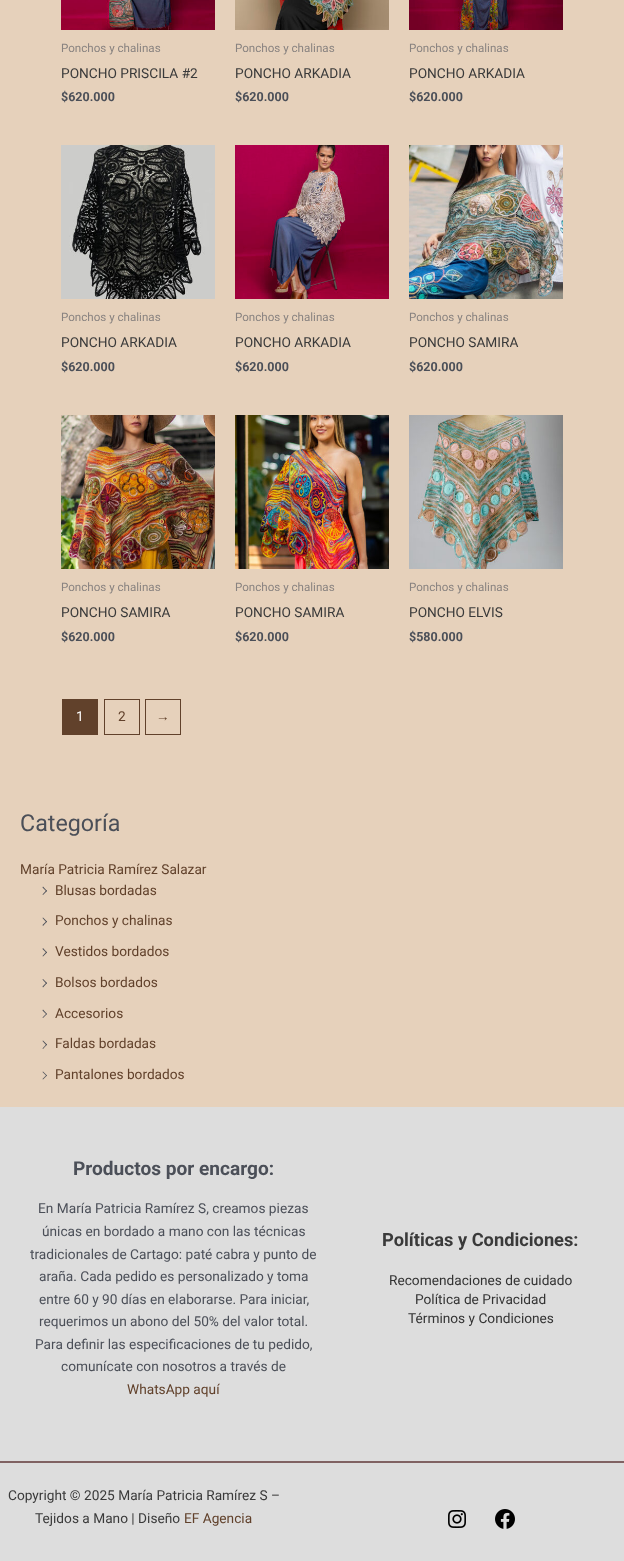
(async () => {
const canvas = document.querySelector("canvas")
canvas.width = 624
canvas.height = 1561
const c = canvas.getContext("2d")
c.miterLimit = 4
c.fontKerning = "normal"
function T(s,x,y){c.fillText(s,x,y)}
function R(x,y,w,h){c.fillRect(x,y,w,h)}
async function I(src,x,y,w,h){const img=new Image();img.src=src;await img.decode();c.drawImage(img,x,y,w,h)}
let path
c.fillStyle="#e6d1bb"
R(0,0,624,1561)
await I("1.png",61,0,154,30)
c.font="11.6px Roboto"
c.fillStyle="#898380"
T("Ponchos y chalinas",61,52)
c.font="13.7px Roboto"
c.fillStyle="#3a3a3a"
T("PONCHO PRISCILA #2",61,78)
c.font="bold 12.5px Roboto"
c.fillStyle="#4b4f58"
T("$620.000",61,101)
await I("2.png",235,0,154,30)
c.font="11.6px Roboto"
c.fillStyle="#898380"
T("Ponchos y chalinas",235,52)
c.font="13.7px Roboto"
c.fillStyle="#3a3a3a"
T("PONCHO ARKADIA",235,78)
c.font="bold 12.5px Roboto"
c.fillStyle="#4b4f58"
T("$620.000",235,101)
await I("3.png",409,0,154,30)
c.font="11.6px Roboto"
c.fillStyle="#898380"
T("Ponchos y chalinas",409,52)
c.font="13.7px Roboto"
c.fillStyle="#3a3a3a"
T("PONCHO ARKADIA",409,78)
c.font="bold 12.5px Roboto"
c.fillStyle="#4b4f58"
T("$620.000",409,101)
await I("4.png",61,145,154,154)
c.font="11.6px Roboto"
c.fillStyle="#898380"
T("Ponchos y chalinas",61,321)
c.font="13.7px Roboto"
c.fillStyle="#3a3a3a"
T("PONCHO ARKADIA",61,347)
c.font="bold 12.5px Roboto"
c.fillStyle="#4b4f58"
T("$620.000",61,371)
await I("5.png",235,145,154,154)
c.font="11.6px Roboto"
c.fillStyle="#898380"
T("Ponchos y chalinas",235,321)
c.font="13.7px Roboto"
c.fillStyle="#3a3a3a"
T("PONCHO ARKADIA",235,347)
c.font="bold 12.5px Roboto"
c.fillStyle="#4b4f58"
T("$620.000",235,371)
await I("6.png",409,145,154,154)
c.font="11.6px Roboto"
c.fillStyle="#898380"
T("Ponchos y chalinas",409,321)
c.font="13.7px Roboto"
c.fillStyle="#3a3a3a"
T("PONCHO SAMIRA",409,347)
c.font="bold 12.5px Roboto"
c.fillStyle="#4b4f58"
T("$620.000",409,371)
await I("7.png",61,415,154,154)
c.font="11.6px Roboto"
c.fillStyle="#898380"
T("Ponchos y chalinas",61,591)
c.font="13.7px Roboto"
c.fillStyle="#3a3a3a"
T("PONCHO SAMIRA",61,617)
c.font="bold 12.5px Roboto"
c.fillStyle="#4b4f58"
T("$620.000",61,641)
await I("8.png",235,415,154,154)
c.font="11.6px Roboto"
c.fillStyle="#898380"
T("Ponchos y chalinas",235,591)
c.font="13.7px Roboto"
c.fillStyle="#3a3a3a"
T("PONCHO SAMIRA",235,617)
c.font="bold 12.5px Roboto"
c.fillStyle="#4b4f58"
T("$620.000",235,641)
await I("9.png",409,415,154,154)
c.font="11.6px Roboto"
c.fillStyle="#898380"
T("Ponchos y chalinas",409,591)
c.font="13.7px Roboto"
c.fillStyle="#3a3a3a"
T("PONCHO ELVIS",409,617)
c.font="bold 12.5px Roboto"
c.fillStyle="#4b4f58"
T("$580.000",409,641)
c.strokeStyle="#61412b"
c.strokeRect(62.5,699.5,35,35)
c.fillStyle="#61412b"
R(63,700,34,34)
c.font="13.7px Roboto"
c.fillStyle="#fff"
T("1",76,721)
c.strokeRect(104.5,699.5,35,35)
c.fillStyle="#61412b"
T("2",118,721)
c.strokeRect(145.5,699.5,35,35)
c.font="13.7px Liberation Sans"
T("→",156,721)
c.font="23.25px Roboto"
c.fillStyle="#4b4f58"
T("Categoría",20,831)
c.font="13.7px Roboto"
c.fillStyle="#61412b"
T("María Patricia Ramírez Salazar",20,874)
c.fillStyle="#4b4f58"
path = new Path2D("M43 886.5l4 4.5l-.5 .5l-4-4z")
c.fill(path)
path = new Path2D("M46.5 890l.5 1l-4 4l-.5-.5z")
c.fill(path)
c.fillStyle="#61412b"
T("Blusas bordadas",55,895)
c.fillStyle="#4b4f58"
path = new Path2D("M43 917.5l4 4l-.5 1l-4-4.5z")
c.fill(path)
path = new Path2D("M46.5 921l.5 .5l-4 4.5l-.5-1z")
c.fill(path)
c.fillStyle="#61412b"
T("Ponchos y chalinas",55,925)
c.fillStyle="#4b4f58"
path = new Path2D("M43 948l4 4.5l-.5 .5l-4-4z")
c.fill(path)
path = new Path2D("M46.5 951.5l.5 1l-4 4l-.5-.5z")
c.fill(path)
c.fillStyle="#61412b"
T("Vestidos bordados",55,956)
c.fillStyle="#4b4f58"
path = new Path2D("M43 979l4 4l-.5 1l-4-4.5z")
c.fill(path)
path = new Path2D("M46.5 982.5l.5 .5l-4 4.5l-.5-1z")
c.fill(path)
c.fillStyle="#61412b"
T("Bolsos bordados",55,987)
c.fillStyle="#4b4f58"
path = new Path2D("M43 1009.5l4 4.5l-.5 .5l-4-4z")
c.fill(path)
path = new Path2D("M46.5 1013.5l.5 .5l-4 4l-.5-.5z")
c.fill(path)
c.fillStyle="#61412b"
T("Accesorios",55,1018)
c.fillStyle="#4b4f58"
path = new Path2D("M43 1040.5l4 4l-.5 1l-4-4.5z")
c.fill(path)
path = new Path2D("M46.5 1044l.5 .5l-4 4.5l-.5-.5z")
c.fill(path)
c.fillStyle="#61412b"
T("Faldas bordadas",55,1048)
c.fillStyle="#4b4f58"
path = new Path2D("M43 1071.5l4 4l-.5 .5l-4-4z")
c.fill(path)
path = new Path2D("M46.5 1075l.5 .5l-4 4l-.5-.5z")
c.fill(path)
c.fillStyle="#61412b"
T("Pantalones bordados",55,1079)
c.fillStyle="#ddd"
R(0,1107,624,354)
c.font="bold 19.1px Roboto"
c.fillStyle="#4b4f58"
T("Productos por encargo:",73,1175)
c.font="13.7px Roboto"
T("En María Patricia Ramírez S, creamos piezas",38,1213)
T("únicas en bordado a mano con las técnicas",42,1236)
T("tradicionales de Cartago: paté cabra y punto de",30,1259)
T("araña. Cada pedido es personalizado y toma",39,1281)
T("entre 60 y 90 días en elaborarse. Para iniciar,",39,1304)
T("requerimos un abono del 50% del valor total.",39,1326)
T("Para definir las especificaciones de tu pedido,",35,1349)
T("comunícate con nosotros a través de",61,1371)
c.fillStyle="#61412b"
T("WhatsApp aquí",127,1394)
c.font="bold 18.25px Roboto"
c.fillStyle="#3a3a3a"
T("Políticas y Condiciones:",382,1246)
c.font="13.7px Roboto"
c.fillStyle="#333"
T("Recomendaciones de cuidado",389,1285)
T("Política de Privacidad",415,1304)
T("Términos y Condiciones",408,1323)
c.fillStyle="#ddd"
R(0,1463,624,98)
c.fillStyle="#806262"
R(0,1461,624,2)
c.fillStyle="#3a3a3a"
T("Copyright © 2025 María Patricia Ramírez S –",8,1500)
T("Tejidos a Mano | Diseño",35,1523)
c.fillStyle="#61412b"
T("EF Agencia",184,1523)
await I("10.png",448,1510,18,18)
await I("11.png",495,1509,20,20)
})()
